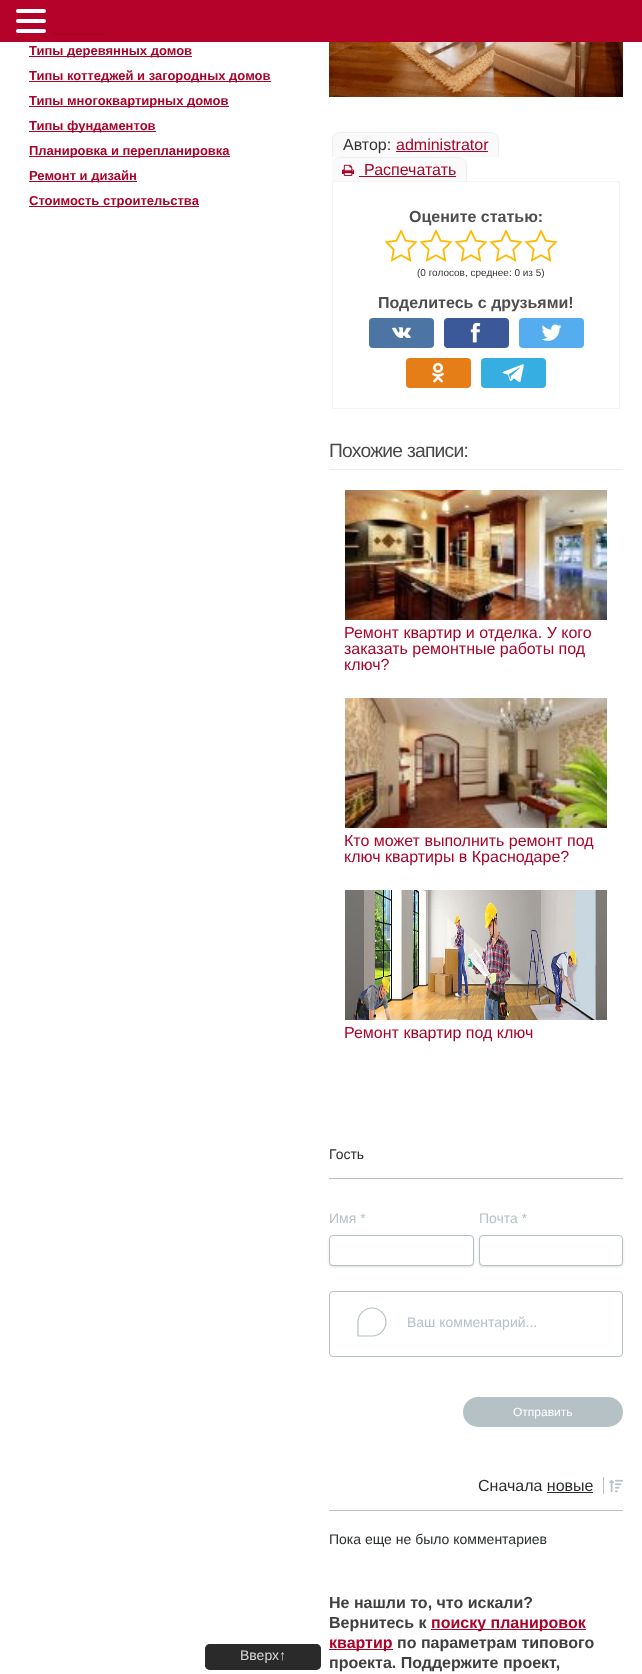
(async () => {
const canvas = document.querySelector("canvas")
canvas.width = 642
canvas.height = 1674
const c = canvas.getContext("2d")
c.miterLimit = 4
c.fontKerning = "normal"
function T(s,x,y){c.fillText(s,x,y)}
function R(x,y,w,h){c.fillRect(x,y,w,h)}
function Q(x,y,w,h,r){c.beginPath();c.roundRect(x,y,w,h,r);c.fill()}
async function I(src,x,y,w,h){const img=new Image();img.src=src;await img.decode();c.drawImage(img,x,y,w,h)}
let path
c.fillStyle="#fff"
R(0,0,642,1674)
c.fillStyle="#b4022b"
R(0,0,642,42)
c.fillStyle="#fff"
Q(16,9,30,4,2)
Q(16,19,30,4,2)
Q(16,29,30,4,2)
c.fillStyle="#a90329"
R(52,33,54,2)
R(29,56,163,1)
c.font="bold 13px Liberation Sans"
T("Типы деревянных домов",29,55)
R(29,81,242,1)
T("Типы коттеджей и загородных домов",29,80)
R(29,106,200,1)
T("Типы многоквартирных домов",29,105)
R(29,131,127,1)
T("Типы фундаментов",29,130)
R(29,156,201,1)
T("Планировка и перепланировка",29,155)
R(29,181,108,1)
T("Ремонт и дизайн",29,180)
R(29,206,170,1)
T("Стоимость строительства",29,205)
await I("1.png",329,42,294,55)
c.fillStyle="#fafafa"
c.beginPath()
c.roundRect(332,132,167,25,[8,8,0,0])
c.fill()
c.fillStyle="#edf0f3"
path = new Path2D("M340 132h151c4 0 8 4 8 8v17h-167v-17c0-4 4-8 8-8zm0 1h151c4 0 7 3 7 7v17h-165v-17c0-4 3-7 7-7z")
c.fill(path,"evenodd")
c.font="16px Liberation Sans"
c.fillStyle="#333"
T("Автор:",343,150)
c.fillStyle="#a90329"
T("administrator",396,150)
R(396,151,92,1)
c.fillStyle="#fafafa"
c.beginPath()
c.roundRect(332,157,135,25,[8,8,0,0])
c.fill()
c.fillStyle="#edf0f3"
path = new Path2D("M340 157h119c4 0 8 4 8 8v17h-135v-17c0-4 4-8 8-8zm0 1h119c4 0 7 3 7 7v17h-134v-17c0-4 4-7 8-7z")
c.fill(path,"evenodd")
await I("2.png",342,164,13,12)
c.fillStyle="#a90329"
T("Распечатать",364,175)
R(359,176,97,1)
c.strokeStyle="#f2f5f8"
c.strokeRect(332.5,181.5,287,227)
c.font="bold 16px Liberation Sans"
c.fillStyle="#4e4e4e"
T("Оцените статью:",409,222)
await I("3.png",384,230,174,32)
c.font="10px Liberation Sans"
c.fillStyle="#333"
T("(0 голосов, среднее: 0 из 5)",417,276)
c.font="bold 16px Liberation Sans"
c.fillStyle="#4e4e4e"
T("Поделитесь с друзьями!",378,308)
c.fillStyle="#4d75a3"
Q(369,318,65,30,4)
await I("4.png",392,327,19,11)
c.fillStyle="#3b5998"
Q(444,318,65,30,4)
await I("5.png",470,322,11,21)
c.fillStyle="#55acee"
Q(519,318,65,30,4)
await I("6.png",541,324,21,17)
c.fillStyle="#e67e17"
Q(406,358,65,30,4)
await I("7.png",432,362,12,21)
c.fillStyle="#37aee2"
Q(481,358,65,30,4)
await I("8.png",502,364,22,19)
c.letterSpacing="-0.75px"
c.font="19.25px Liberation Sans"
c.fillStyle="#484848"
T("Похожие записи:",329,457)
c.fillStyle="#ebebeb"
R(329,469,294,1)
await I("9.png",345,490,262,130)
c.letterSpacing="0px"
c.font="16px Liberation Sans"
c.fillStyle="#a90329"
T("Ремонт квартир и отделка. У кого",344,638)
T("заказать ремонтные работы под",344,654)
T("ключ?",344,670)
await I("10.png",345,698,262,130)
T("Кто может выполнить ремонт под",344,846)
T("ключ квартиры в Краснодаре?",344,862)
await I("11.png",345,890,262,130)
T("Ремонт квартир под ключ",344,1038)
c.font="14px Liberation Sans"
c.fillStyle="#2a2e2e"
T("Гость",329,1159)
c.fillStyle="#b6c1c6"
R(329,1178,294,1)
T("Имя *",329,1223)
c.fillStyle="#ddd"
c.filter="blur(1px)"
c.beginPath()
c.roundRect(329,1236,145,31,4)
c.fill()
c.filter="none"
c.fillStyle="#fff"
c.beginPath()
c.roundRect(329.5,1235.5,144,30,3.5)
c.fill()
c.strokeStyle="#b6c1c6"
c.stroke()
c.fillStyle="#b6c1c6"
T("Почта *",479,1223)
c.fillStyle="#ddd"
c.filter="blur(1px)"
c.beginPath()
c.roundRect(479,1236,144,31,4)
c.fill()
c.filter="none"
c.fillStyle="#fff"
c.beginPath()
c.roundRect(479.5,1235.5,143,30,3.5)
c.fill()
c.stroke()
c.beginPath()
c.roundRect(329.5,1291.5,293,65,3.5)
c.stroke()
path = new Path2D("M358 1322c0-7.5 6.5-14 14-14c7.5 0 14 6.5 14 14c0 7.5-6.5 14-14 14h-14z")
c.lineWidth=1.2
c.stroke(path)
c.fillStyle="#b6c1c6"
T("Ваш комментарий...",407,1327)
Q(463,1397,160,30,15)
c.font="12px Liberation Sans"
c.fillStyle="#fff"
T("Отправить",513,1416)
c.fillStyle="#b6c1c6"
R(329,1510,294,1)
c.font="16px Liberation Sans"
c.fillStyle="#2a2e2e"
T("Сначала новые",478,1491)
c.fillStyle="#b6c1c6"
R(603,1477,1,17)
await I("12.png",609,1479,14,14)
c.fillStyle="#2a2e2e"
R(547,1492,46,1)
c.font="14px Liberation Sans"
T("Пока еще не было комментариев",329,1544)
c.font="bold 16px Liberation Sans"
c.fillStyle="#404040"
T("Не нашли то, что искали?",329,1608)
T("Вернитесь к",329,1628)
c.fillStyle="#a90329"
R(431,1629,155,1)
T("поиску планировок",431,1628)
R(329,1649,64,1)
T("квартир",329,1648)
c.fillStyle="#404040"
T("по параметрам типового",397,1648)
T("проекта. Поддержите проект,",329,1668)
c.fillStyle="#4e4e4e"
Q(205,1644,116,26,5)
c.fillStyle="#222222cc"
Q(205,1644,116,26,5)
c.font="14px Liberation Sans"
c.fillStyle="#d8d8d8"
T("Вверх↑",240,1660)
})()
